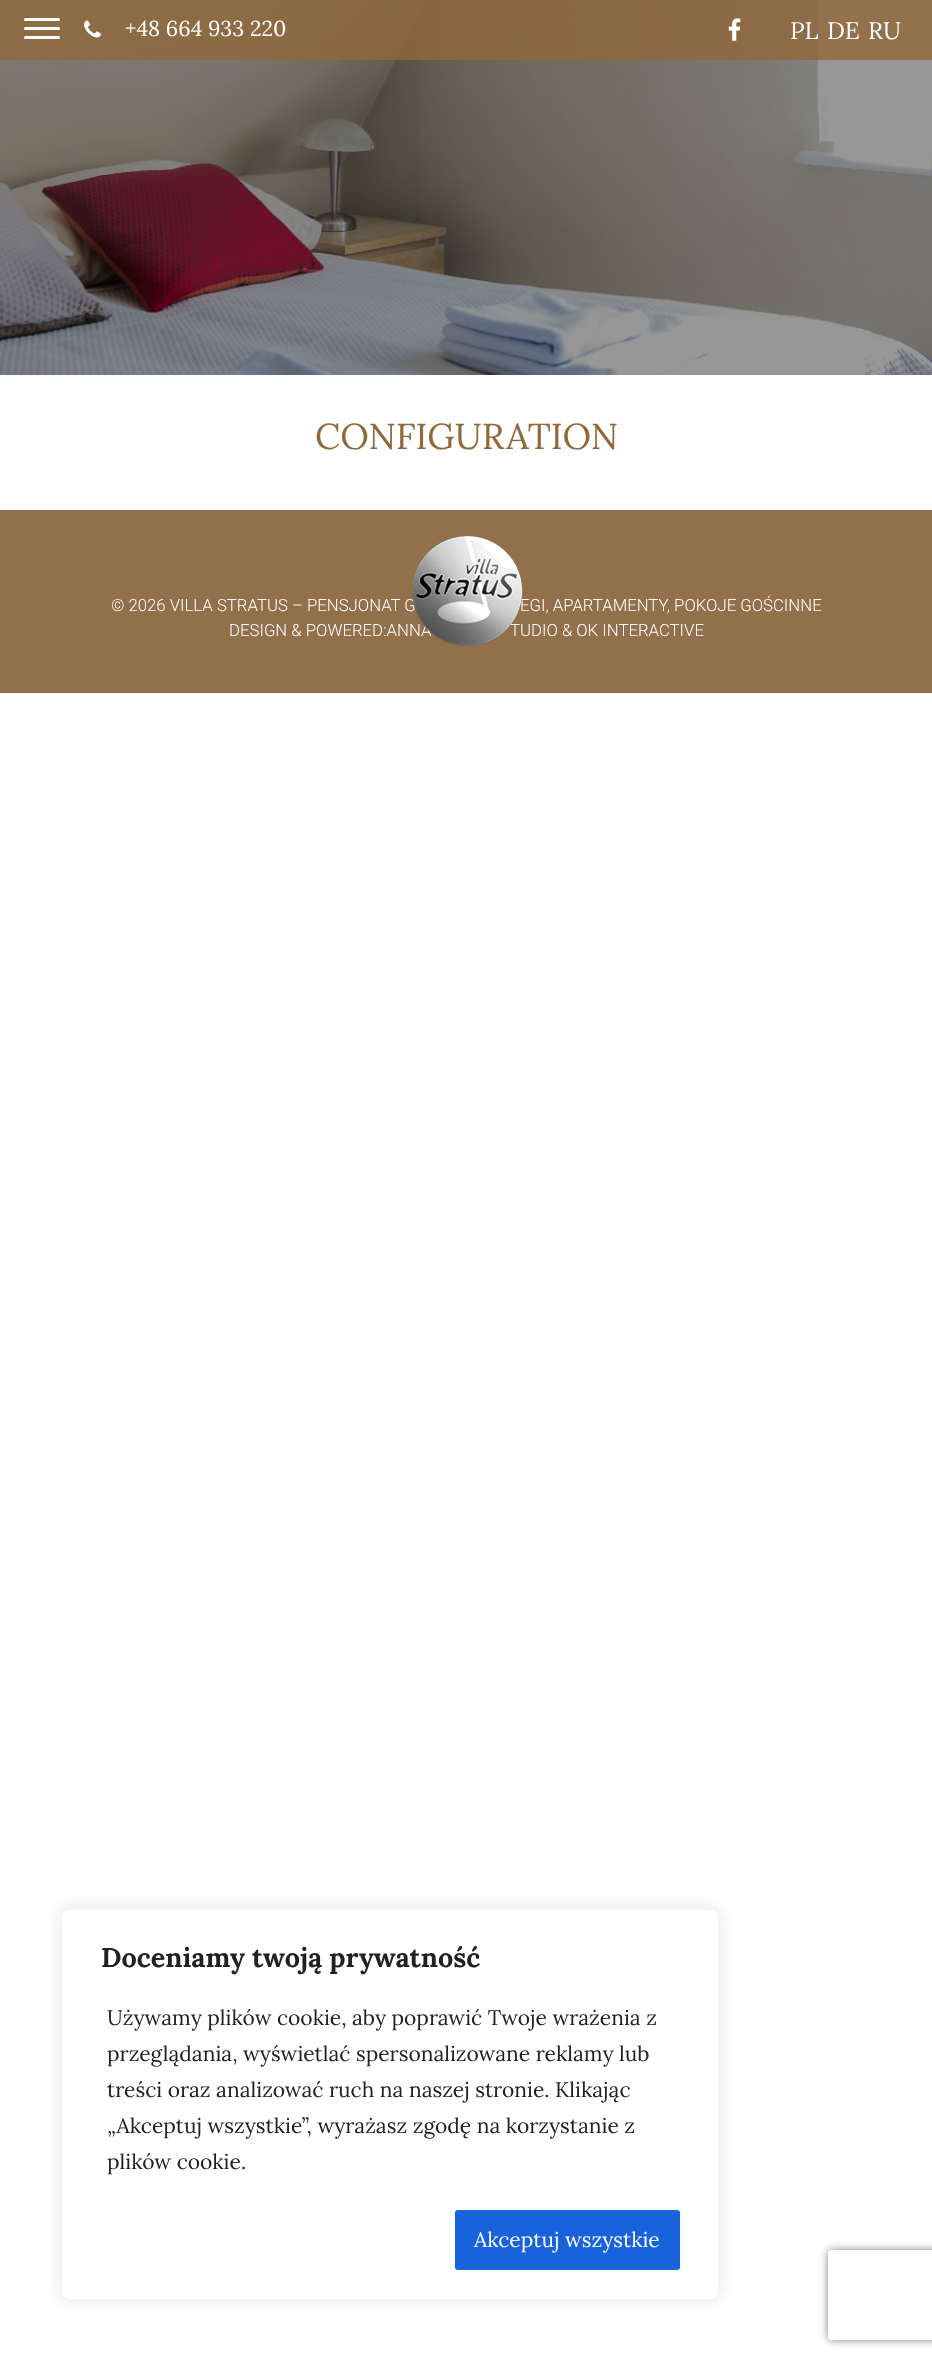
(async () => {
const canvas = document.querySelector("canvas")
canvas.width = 932
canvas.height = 2360
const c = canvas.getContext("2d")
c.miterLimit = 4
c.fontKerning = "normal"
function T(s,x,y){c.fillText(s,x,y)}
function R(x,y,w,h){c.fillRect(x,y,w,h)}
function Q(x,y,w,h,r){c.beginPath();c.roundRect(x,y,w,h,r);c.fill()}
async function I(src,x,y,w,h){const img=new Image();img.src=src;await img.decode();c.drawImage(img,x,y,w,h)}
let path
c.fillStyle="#fff"
R(0,0,932,2360)
await I("1.png",0,0,932,375)
c.fillStyle="#91683acc"
R(0,0,932,60)
c.fillStyle="#fff"
Q(24,18,36,3,1.5)
Q(24,27,36,3,1.5)
Q(24,36,36,3,1.5)
await I("2.png",84,20,17,18)
c.font="21.5px Lora"
T("+48 664 933 220",125,36)
await I("3.png",728,18,13,23)
c.font="24px Lora"
T("PL",790,39)
T("DE",827,39)
T("RU",868,39)
c.fillStyle="#91704b"
R(0,510,932,183)
c.font="300 16.75px Roboto"
c.fillStyle="#fff"
T("© 2026 VILLA STRATUS – PENSJONAT G",111,611)
T("EGI, APARTAMENTY, POKOJE GOŚCINNE",520,611)
T("DESIGN & POWERED:ANNA",229,636)
T("TUDIO & OK INTERACTIVE",510,636)
await I("4.png",412,536,111,110)
c.font="36px Lora"
c.fillStyle="#91683a"
T("CONFIGURATION",315,449)
c.fillStyle="#acabab4d"
c.filter="blur(7.5px)"
c.beginPath()
c.roundRect(60,1907,660,393,9)
c.fill()
c.filter="none"
c.fillStyle="#fff"
c.beginPath()
c.roundRect(61,1909,658,391,8)
c.fill()
c.strokeStyle="#f4f4f4"
c.lineWidth=2
c.stroke()
c.font="bold 27px Lora"
c.fillStyle="#212121"
T("Doceniamy twoją prywatność",101,1967)
c.font="21px Lora"
T("Używamy plików cookie, aby poprawić Twoje wrażenia z",107,2025)
T("przeglądania, wyświetlać spersonalizowane reklamy lub",107,2061)
T("treści oraz analizować ruch na naszej stronie. Klikając",107,2097)
T("„Akceptuj wszystkie”, wyrażasz zgodę na korzystanie z",107,2133)
T("plików cookie.",107,2169)
c.fillStyle="#1863dc"
Q(455,2210,225,60,3)
c.fillStyle="#fff"
T("Akceptuj wszystkie",474,2247)
c.save()
path = new Path2D("M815 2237h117v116h-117zm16 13h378c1.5 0 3 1.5 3 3v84c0 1.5-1.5 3-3 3h-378c-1.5 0-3-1.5-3-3v-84c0-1.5 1.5-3 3-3z")
c.clip(path,"evenodd")
c.fillStyle="#808080"
c.filter="blur(4px)"
c.beginPath()
c.roundRect(828,2250,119,90,3)
c.fill()
c.filter="none"
c.restore()
})()
